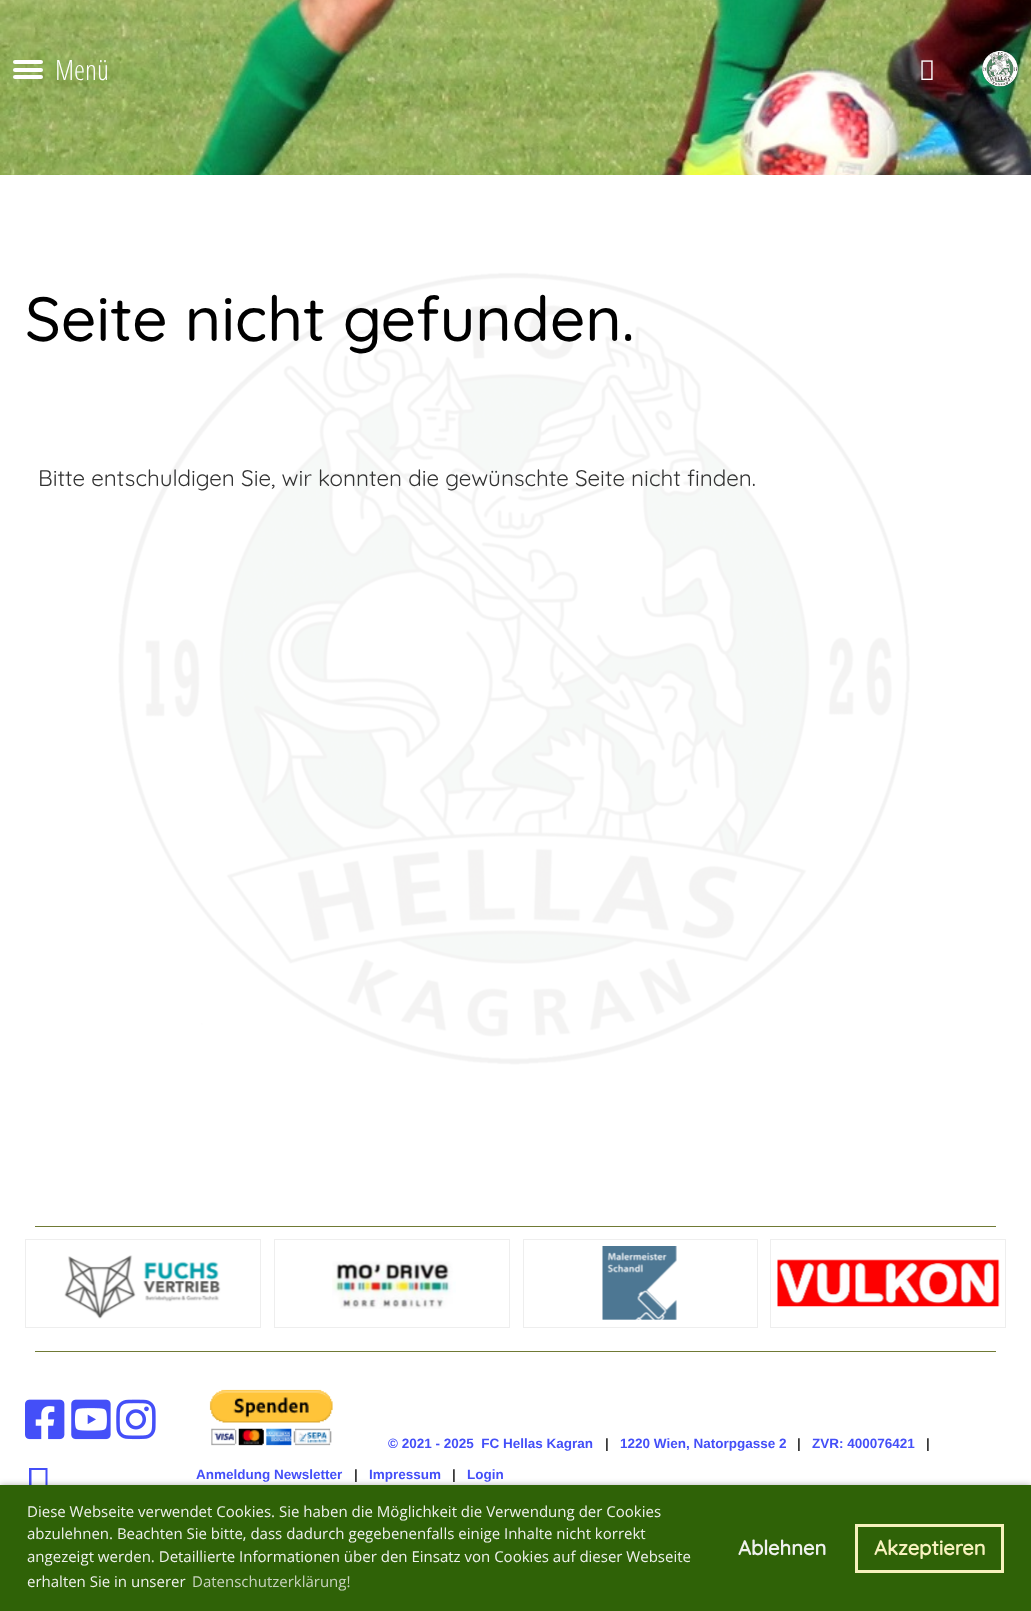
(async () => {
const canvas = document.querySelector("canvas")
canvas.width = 1031
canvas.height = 1611
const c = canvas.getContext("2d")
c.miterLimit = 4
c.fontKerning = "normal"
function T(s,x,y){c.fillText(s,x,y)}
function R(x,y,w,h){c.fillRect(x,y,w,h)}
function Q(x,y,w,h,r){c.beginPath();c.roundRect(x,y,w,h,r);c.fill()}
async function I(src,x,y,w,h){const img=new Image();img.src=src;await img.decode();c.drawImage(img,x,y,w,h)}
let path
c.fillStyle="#fff"
R(0,0,1031,1611)
await I("3.png",0,0,1031,175)
Q(13,60,30,4,2)
Q(13,68,30,4,2)
Q(13,75,30,4,2)
c.font="300 28px Open Sans Condensed"
T("Menü",55,80)
await I("1.png",921,60,12,20)
await I("2.png",982,50,36,37)
await I("4.png",118,272,793,793)
c.font="300 62.5px Quicksand"
c.fillStyle="#000"
T("Seite nicht gefunden.",25,341)
c.font="300 22.5px 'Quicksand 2'"
c.fillStyle="#333"
T("Bitte entschuldigen Sie, wir konnten die gewünschte Seite nicht finden.",38,486)
c.fillStyle="#707a35"
R(35,1226,961,1)
c.strokeStyle="#eee"
c.strokeRect(25.5,1239.5,235,88)
await I("5.png",64,1255,157,64)
c.strokeRect(274.5,1239.5,235,88)
await I("6.png",332,1261,124,48)
c.strokeRect(523.5,1239.5,234,88)
await I("7.png",602,1246,75,74)
c.strokeRect(770.5,1239.5,235,88)
await I("8.png",777,1259,223,48)
R(35,1351,961,1)
await I("9.png",25,1399,40,41)
await I("10.png",71,1399,40,41)
await I("11.png",116,1399,40,41)
c.fillStyle="#444ff8"
path = new Path2D("M29 1500v-32h18.5v32zm2.5-2.5h14v-27.5h-14z")
c.fill(path)
await I("12.png",209,1389,124,57)
c.font="bold 13.5px Liberation Sans"
T("© 2021 - 2025  FC Hellas Kagran",388,1448)
c.fillStyle="#333"
T("|",605,1448)
c.fillStyle="#444ff8"
T("1220 Wien, Natorpgasse 2",620,1448)
c.fillStyle="#333"
T("|",797,1448)
c.fillStyle="#444ff8"
T("ZVR: 400076421",812,1448)
c.fillStyle="#333"
T("|",926,1448)
c.fillStyle="#444ff8"
T("Anmeldung Newsletter",196,1479)
c.fillStyle="#333"
T("|",354,1479)
c.fillStyle="#444ff8"
T("Impressum",369,1479)
c.fillStyle="#333"
T("|",452,1479)
c.fillStyle="#444ff8"
T("Login",467,1479)
c.fillStyle="#0000004d"
c.filter="blur(3px)"
c.beginPath()
c.rect(0,1485,1031,126)
c.fill()
c.filter="none"
c.fillStyle="#2f6207"
R(0,1485,1031,126)
c.font="15px Open Sans"
c.fillStyle="#eef0ed"
T("Diese Webseite verwendet Cookies. Sie haben die Möglichkeit die Verwendung der Cookies",27,1517)
T("abzulehnen. Beachten Sie bitte, dass dadurch gegebenenfalls einige Inhalte nicht korrekt",27,1539)
T("angezeigt werden. Detaillierte Informationen über den Einsatz von Cookies auf dieser Webseite",27,1562)
T("erhalten Sie in unserer",27,1587)
c.fillStyle="#c8d3bf"
T("Datenschutzerklärung!",192,1587)
c.font="bold 20.25px Quicksand"
c.fillStyle="#eef0ed"
T("Ablehnen",738,1555)
c.strokeStyle="#f7f1bd"
c.lineWidth=3
c.strokeRect(856.5,1525.5,146,46)
c.fillStyle="#f7f1bd"
T("Akzeptieren",874,1555)
})()
